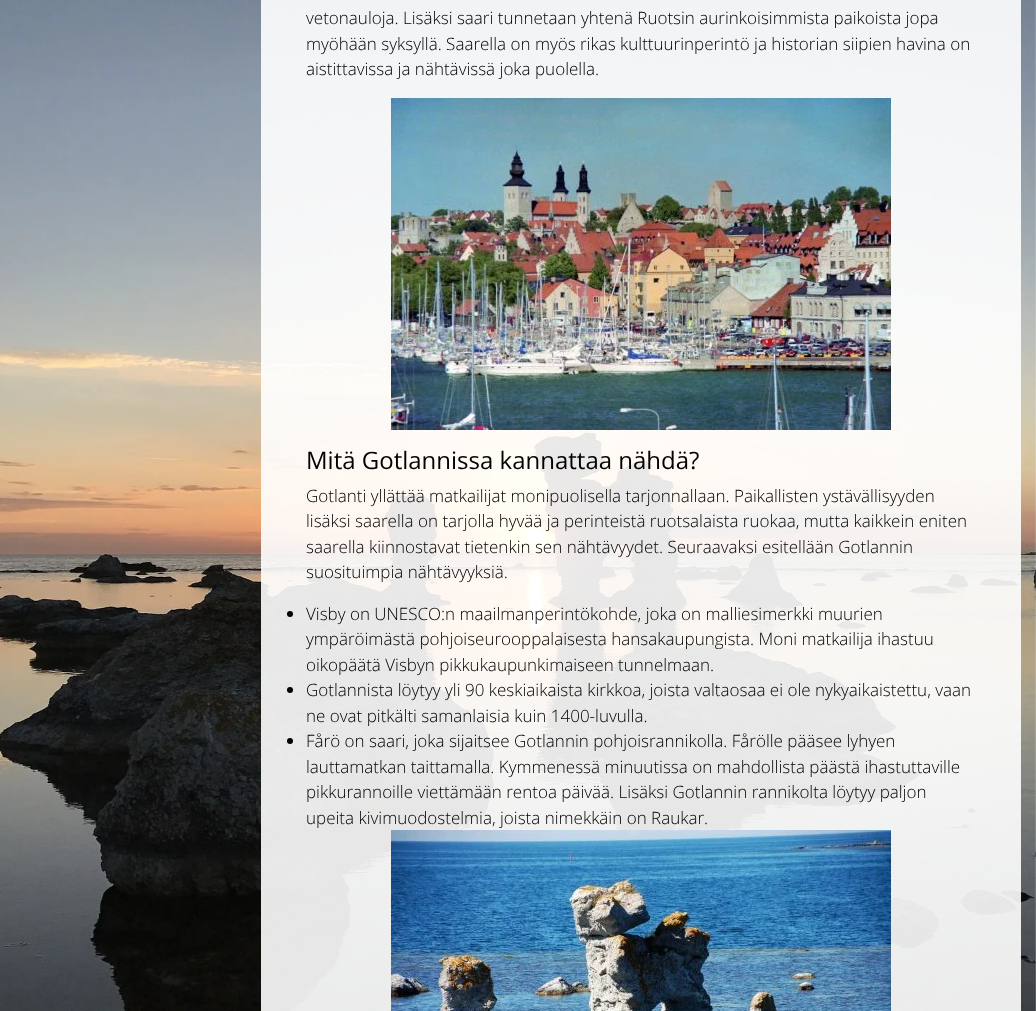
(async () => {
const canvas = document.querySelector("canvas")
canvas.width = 1036
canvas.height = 1011
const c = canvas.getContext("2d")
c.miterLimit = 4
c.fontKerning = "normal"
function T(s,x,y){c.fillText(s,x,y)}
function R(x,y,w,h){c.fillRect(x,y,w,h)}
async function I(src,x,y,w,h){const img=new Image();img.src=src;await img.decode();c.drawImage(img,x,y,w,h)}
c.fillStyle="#fff"
R(0,0,1036,1011)
await I("1.png",0,0,1036,1011)
c.fillStyle="#ffffffe6"
R(261,0,760,1011)
c.font="300 17px Open Sans"
c.fillStyle="#000"
T("vetonauloja. Lisäksi saari tunnetaan yhtenä Ruotsin aurinkoisimmista paikoista jopa",306,24)
T("myöhään syksyllä. Saarella on myös rikas kulttuurinperintö ja historian siipien havina on",306,50)
T("aistittavissa ja nähtävissä joka puolella.",306,75)
await I("2.png",391,98,500,332)
c.font="24px Open Sans"
T("Mitä Gotlannissa kannattaa nähdä?",306,469)
c.font="300 17px Open Sans"
T("Gotlanti yllättää matkailijat monipuolisella tarjonnallaan. Paikallisten ystävällisyyden",306,502)
T("lisäksi saarella on tarjolla hyvää ja perinteistä ruotsalaista ruokaa, mutta kaikkein eniten",306,527)
T("saarella kiinnostavat tietenkin sen nähtävyydet. Seuraavaksi esitellään Gotlannin",306,553)
T("suosituimpia nähtävyyksiä.",306,578)
c.beginPath()
c.arc(290,614,3,0,7)
c.fill()
T("Visby on UNESCO:n maailmanperintökohde, joka on malliesimerkki muurien",306,620)
T("ympäröimästä pohjoiseurooppalaisesta hansakaupungista. Moni matkailija ihastuu",306,645)
T("oikopäätä Visbyn pikkukaupunkimaiseen tunnelmaan.",306,671)
c.beginPath()
c.arc(290,690,3,0,7)
c.fill()
T("Gotlannista löytyy yli 90 keskiaikaista kirkkoa, joista valtaosaa ei ole nykyaikaistettu, vaan",306,696)
T("ne ovat pitkälti samanlaisia kuin 1400-luvulla.",306,722)
c.beginPath()
c.arc(290,741,3,0,7)
c.fill()
T("Fårö on saari, joka sijaitsee Gotlannin pohjoisrannikolla. Fårölle pääsee lyhyen",306,747)
T("lauttamatkan taittamalla. Kymmenessä minuutissa on mahdollista päästä ihastuttaville",306,773)
T("pikkurannoille viettämään rentoa päivää. Lisäksi Gotlannin rannikolta löytyy paljon",306,798)
T("upeita kivimuodostelmia, joista nimekkäin on Raukar.",306,824)
await I("3.png",391,830,500,181)
})()
